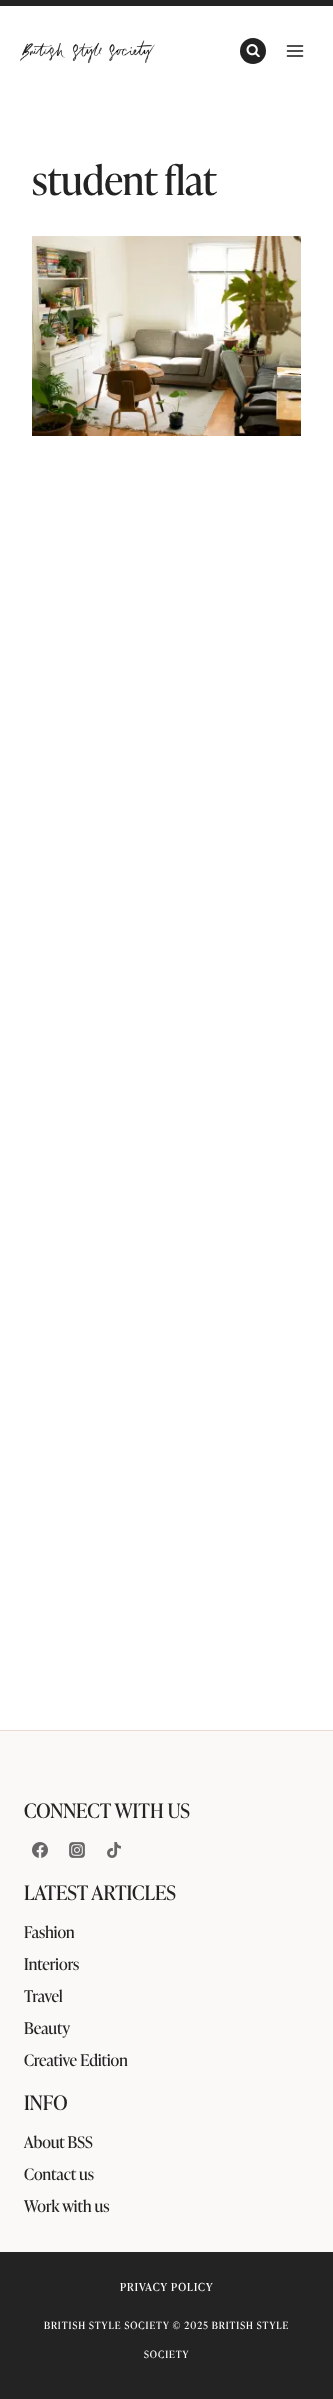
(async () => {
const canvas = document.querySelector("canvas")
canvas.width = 333
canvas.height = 2399
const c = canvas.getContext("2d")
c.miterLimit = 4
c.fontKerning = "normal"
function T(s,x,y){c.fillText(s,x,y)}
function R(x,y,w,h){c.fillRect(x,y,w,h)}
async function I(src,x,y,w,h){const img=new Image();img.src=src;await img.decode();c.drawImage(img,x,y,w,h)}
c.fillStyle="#fff"
R(0,0,333,2399)
c.fillStyle="#232323"
R(0,0,333,6)
await I("1.png",20,40,135,24)
c.beginPath()
c.arc(253,51,13,0,7)
c.fill()
await I("2.png",246,44,14,13)
await I("3.png",286,45,18,12)
c.font="40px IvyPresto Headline"
T("student flat",32,195)
await I("4.png",32,236,269,200)
c.fillStyle="#faf9f7"
R(0,1731,333,521)
c.fillStyle="#eadad1"
R(0,1730,333,1)
c.font="20px IvyPresto Headline"
c.fillStyle="#232323"
T("CONNECT WITH US",24,1818)
await I("5.png",32,1842,16,16)
await I("6.png",69,1842,16,16)
await I("7.png",107,1842,14,16)
T("LATEST ARTICLES",24,1900)
c.font="16px IvyPresto Headline"
T("Fashion",24,1938)
T("Interiors",24,1970)
T("Travel",24,2002)
T("Beauty",24,2034)
T("Creative Edition",24,2066)
c.font="20px IvyPresto Headline"
T("INFO",24,2110)
c.font="16px IvyPresto Headline"
T("About BSS",24,2148)
T("Contact us",24,2180)
T("Work with us",24,2212)
R(0,2252,333,147)
c.letterSpacing="1.1px"
c.font="11px IvyPresto Headline"
c.fillStyle="#fff"
T("PRIVACY POLICY",120,2291)
c.letterSpacing="1px"
c.font="10px IvyPresto Headline"
T("BRITISH STYLE SOCIETY © 2025 BRITISH STYLE",44,2329)
T("SOCIETY",144,2358)
})()
